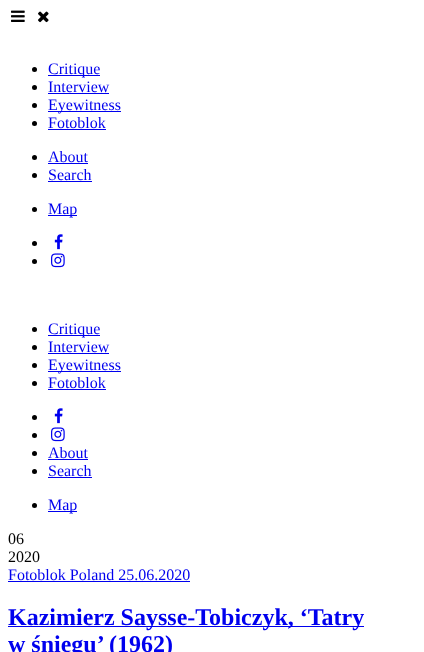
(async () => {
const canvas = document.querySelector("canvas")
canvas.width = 424
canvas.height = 652
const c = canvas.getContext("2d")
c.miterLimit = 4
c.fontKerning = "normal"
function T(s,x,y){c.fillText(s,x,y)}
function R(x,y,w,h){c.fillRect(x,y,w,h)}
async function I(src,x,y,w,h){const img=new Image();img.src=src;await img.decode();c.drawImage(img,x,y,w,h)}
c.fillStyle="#fff"
R(0,0,424,652)
await I("1.png",11,10,14,12)
await I("2.png",38,11,11,12)
c.fillStyle="#000"
c.beginPath()
c.arc(34.5,69.5,2.5,0,7)
c.fill()
c.fillStyle="#00e"
R(48,75,52,1)
c.font="16px Liberation Serif"
T("Critique",48,74)
c.fillStyle="#000"
c.beginPath()
c.arc(34.5,87.5,2.5,0,7)
c.fill()
c.fillStyle="#00e"
T("Interview",48,92)
R(48,93,61,1)
c.fillStyle="#000"
c.beginPath()
c.arc(34.5,105.5,2.5,0,7)
c.fill()
c.fillStyle="#00e"
R(48,111,73,1)
T("Eyewitness",48,110)
c.fillStyle="#000"
c.beginPath()
c.arc(34.5,123.5,2.5,0,7)
c.fill()
c.fillStyle="#00e"
T("Fotoblok",48,128)
R(48,129,58,1)
c.fillStyle="#000"
c.beginPath()
c.arc(34.5,157.5,2.5,0,7)
c.fill()
c.fillStyle="#00e"
T("About",48,162)
R(48,163,40,1)
c.fillStyle="#000"
c.beginPath()
c.arc(34.5,175.5,2.5,0,7)
c.fill()
c.fillStyle="#00e"
T("Search",48,180)
R(48,181,44,1)
c.fillStyle="#000"
c.beginPath()
c.arc(34.5,209.5,2.5,0,7)
c.fill()
c.fillStyle="#00e"
R(48,215,29,1)
T("Map",48,214)
c.fillStyle="#000"
c.beginPath()
c.arc(34.5,243.5,2.5,0,7)
c.fill()
await I("3.png",54,234,9,16)
c.beginPath()
c.arc(34.5,261.5,2.5,0,7)
c.fill()
await I("4.png",51,253,14,15)
c.beginPath()
c.arc(34.5,329.5,2.5,0,7)
c.fill()
c.fillStyle="#00e"
R(48,335,52,1)
T("Critique",48,334)
c.fillStyle="#000"
c.beginPath()
c.arc(34.5,347.5,2.5,0,7)
c.fill()
c.fillStyle="#00e"
T("Interview",48,352)
R(48,353,61,1)
c.fillStyle="#000"
c.beginPath()
c.arc(34.5,365.5,2.5,0,7)
c.fill()
c.fillStyle="#00e"
R(48,371,73,1)
T("Eyewitness",48,370)
c.fillStyle="#000"
c.beginPath()
c.arc(34.5,383.5,2.5,0,7)
c.fill()
c.fillStyle="#00e"
T("Fotoblok",48,388)
R(48,389,58,1)
c.fillStyle="#000"
c.beginPath()
c.arc(34.5,417.5,2.5,0,7)
c.fill()
await I("3.png",54,408,9,16)
c.beginPath()
c.arc(34.5,435.5,2.5,0,7)
c.fill()
await I("4.png",51,427,14,15)
c.beginPath()
c.arc(34.5,453.5,2.5,0,7)
c.fill()
c.fillStyle="#00e"
T("About",48,458)
R(48,459,40,1)
c.fillStyle="#000"
c.beginPath()
c.arc(34.5,471.5,2.5,0,7)
c.fill()
c.fillStyle="#00e"
T("Search",48,476)
R(48,477,44,1)
c.fillStyle="#000"
c.beginPath()
c.arc(34.5,505.5,2.5,0,7)
c.fill()
c.fillStyle="#00e"
R(48,511,29,1)
T("Map",48,510)
c.fillStyle="#000"
T("06",8,544)
T("2020",8,562)
c.fillStyle="#00e"
T("Fotoblok Poland 25.06.2020",8,580)
R(8,581,182,1)
R(8,626,356,1)
c.font="bold 24px Liberation Serif"
T("Kazimierz Saysse-Tobiczyk, ‘Tatry",8,625)
T("w śniegu’ (1962)",8,652)
})()
